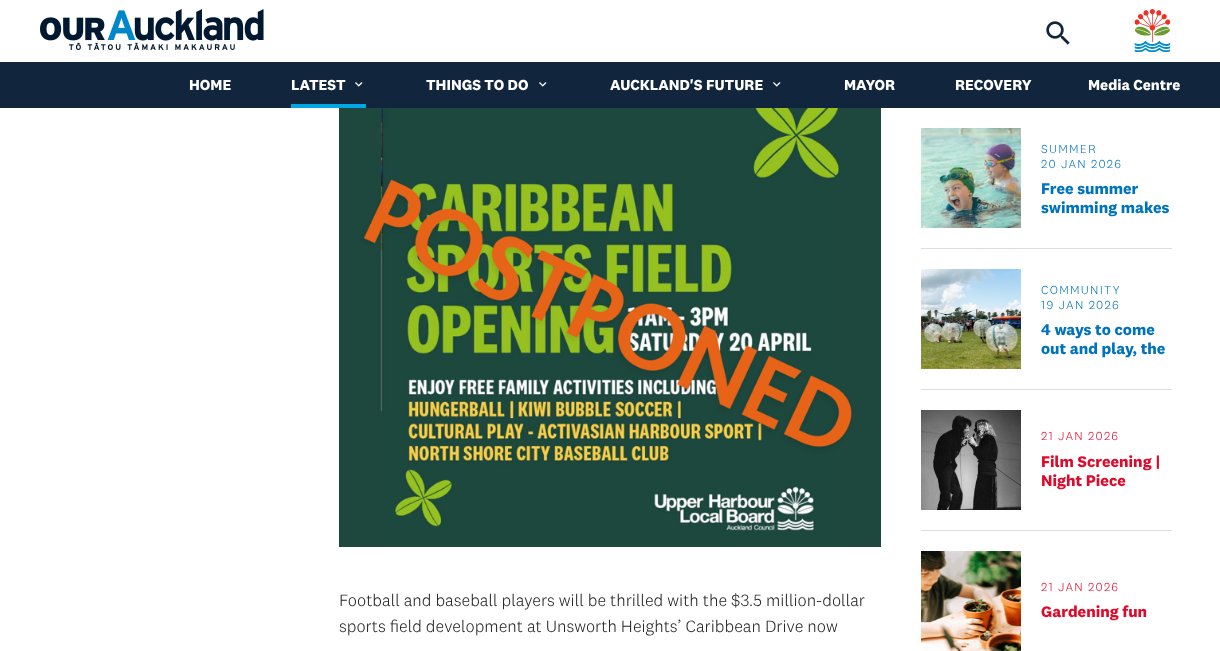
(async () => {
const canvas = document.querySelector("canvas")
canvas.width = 1220
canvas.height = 651
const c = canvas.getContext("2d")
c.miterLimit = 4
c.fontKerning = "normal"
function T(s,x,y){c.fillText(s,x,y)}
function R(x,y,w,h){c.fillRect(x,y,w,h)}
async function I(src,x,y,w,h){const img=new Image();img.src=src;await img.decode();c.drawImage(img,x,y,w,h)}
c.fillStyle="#fff"
R(0,0,1220,651)
await I("1.png",40,9,224,41)
await I("2.png",1046,21,24,24)
await I("3.png",1134,9,37,43)
c.fillStyle="#11263d"
R(0,62,1220,46)
c.font="bold 15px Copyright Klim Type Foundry"
c.fillStyle="#fff"
T("HOME",189,90)
T("LATEST",291,90)
await I("4.png",355,82,8,5)
c.fillStyle="#00a7e5"
R(291,104,75,4)
c.fillStyle="#fff"
T("THINGS TO DO",426,90)
await I("4.png",539,82,8,5)
T("AUCKLAND'S FUTURE",610,90)
await I("4.png",773,82,8,5)
T("MAYOR",844,90)
T("RECOVERY",955,90)
T("Media Centre",1088,90)
await I("5.png",339,108,542,439)
c.font="300 17px 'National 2'"
c.fillStyle="#222"
T("Football and baseball players will be thrilled with the $3.5 million-dollar",339,606)
T("sports field development at Unsworth Heights’ Caribbean Drive now",339,632)
c.fillStyle="#ddd"
R(921,248,251,1)
await I("6.png",921,128,100,100)
c.letterSpacing="1.25px"
c.font="300 12px 'National 2'"
c.fillStyle="#0073bd"
T("SUMMER",1041,153)
T("20 JAN 2026",1041,168)
c.letterSpacing="0px"
c.font="bold 16px Copyright Klim Type Foundry"
T("Free summer",1041,194)
T("swimming makes",1041,213)
c.fillStyle="#ddd"
R(921,389,251,1)
await I("7.png",921,269,100,100)
c.letterSpacing="1.25px"
c.font="300 12px 'National 2'"
c.fillStyle="#0073bd"
T("COMMUNITY",1041,294)
T("19 JAN 2026",1041,309)
c.letterSpacing="0px"
c.font="bold 16px Copyright Klim Type Foundry"
T("4 ways to come",1041,335)
T("out and play, the",1041,354)
c.fillStyle="#ddd"
R(921,530,251,1)
await I("8.png",921,410,100,100)
c.letterSpacing="1.25px"
c.font="300 12px 'National 2'"
c.fillStyle="#de0a2b"
T("21 JAN 2026",1041,440)
c.letterSpacing="0px"
c.font="bold 16px Copyright Klim Type Foundry"
T("Film Screening |",1041,467)
T("Night Piece",1041,486)
await I("9.png",921,551,100,100)
c.letterSpacing="1.25px"
c.font="300 12px 'National 2'"
T("21 JAN 2026",1041,591)
c.letterSpacing="0px"
c.font="bold 16px Copyright Klim Type Foundry"
T("Gardening fun",1041,617)
})()
